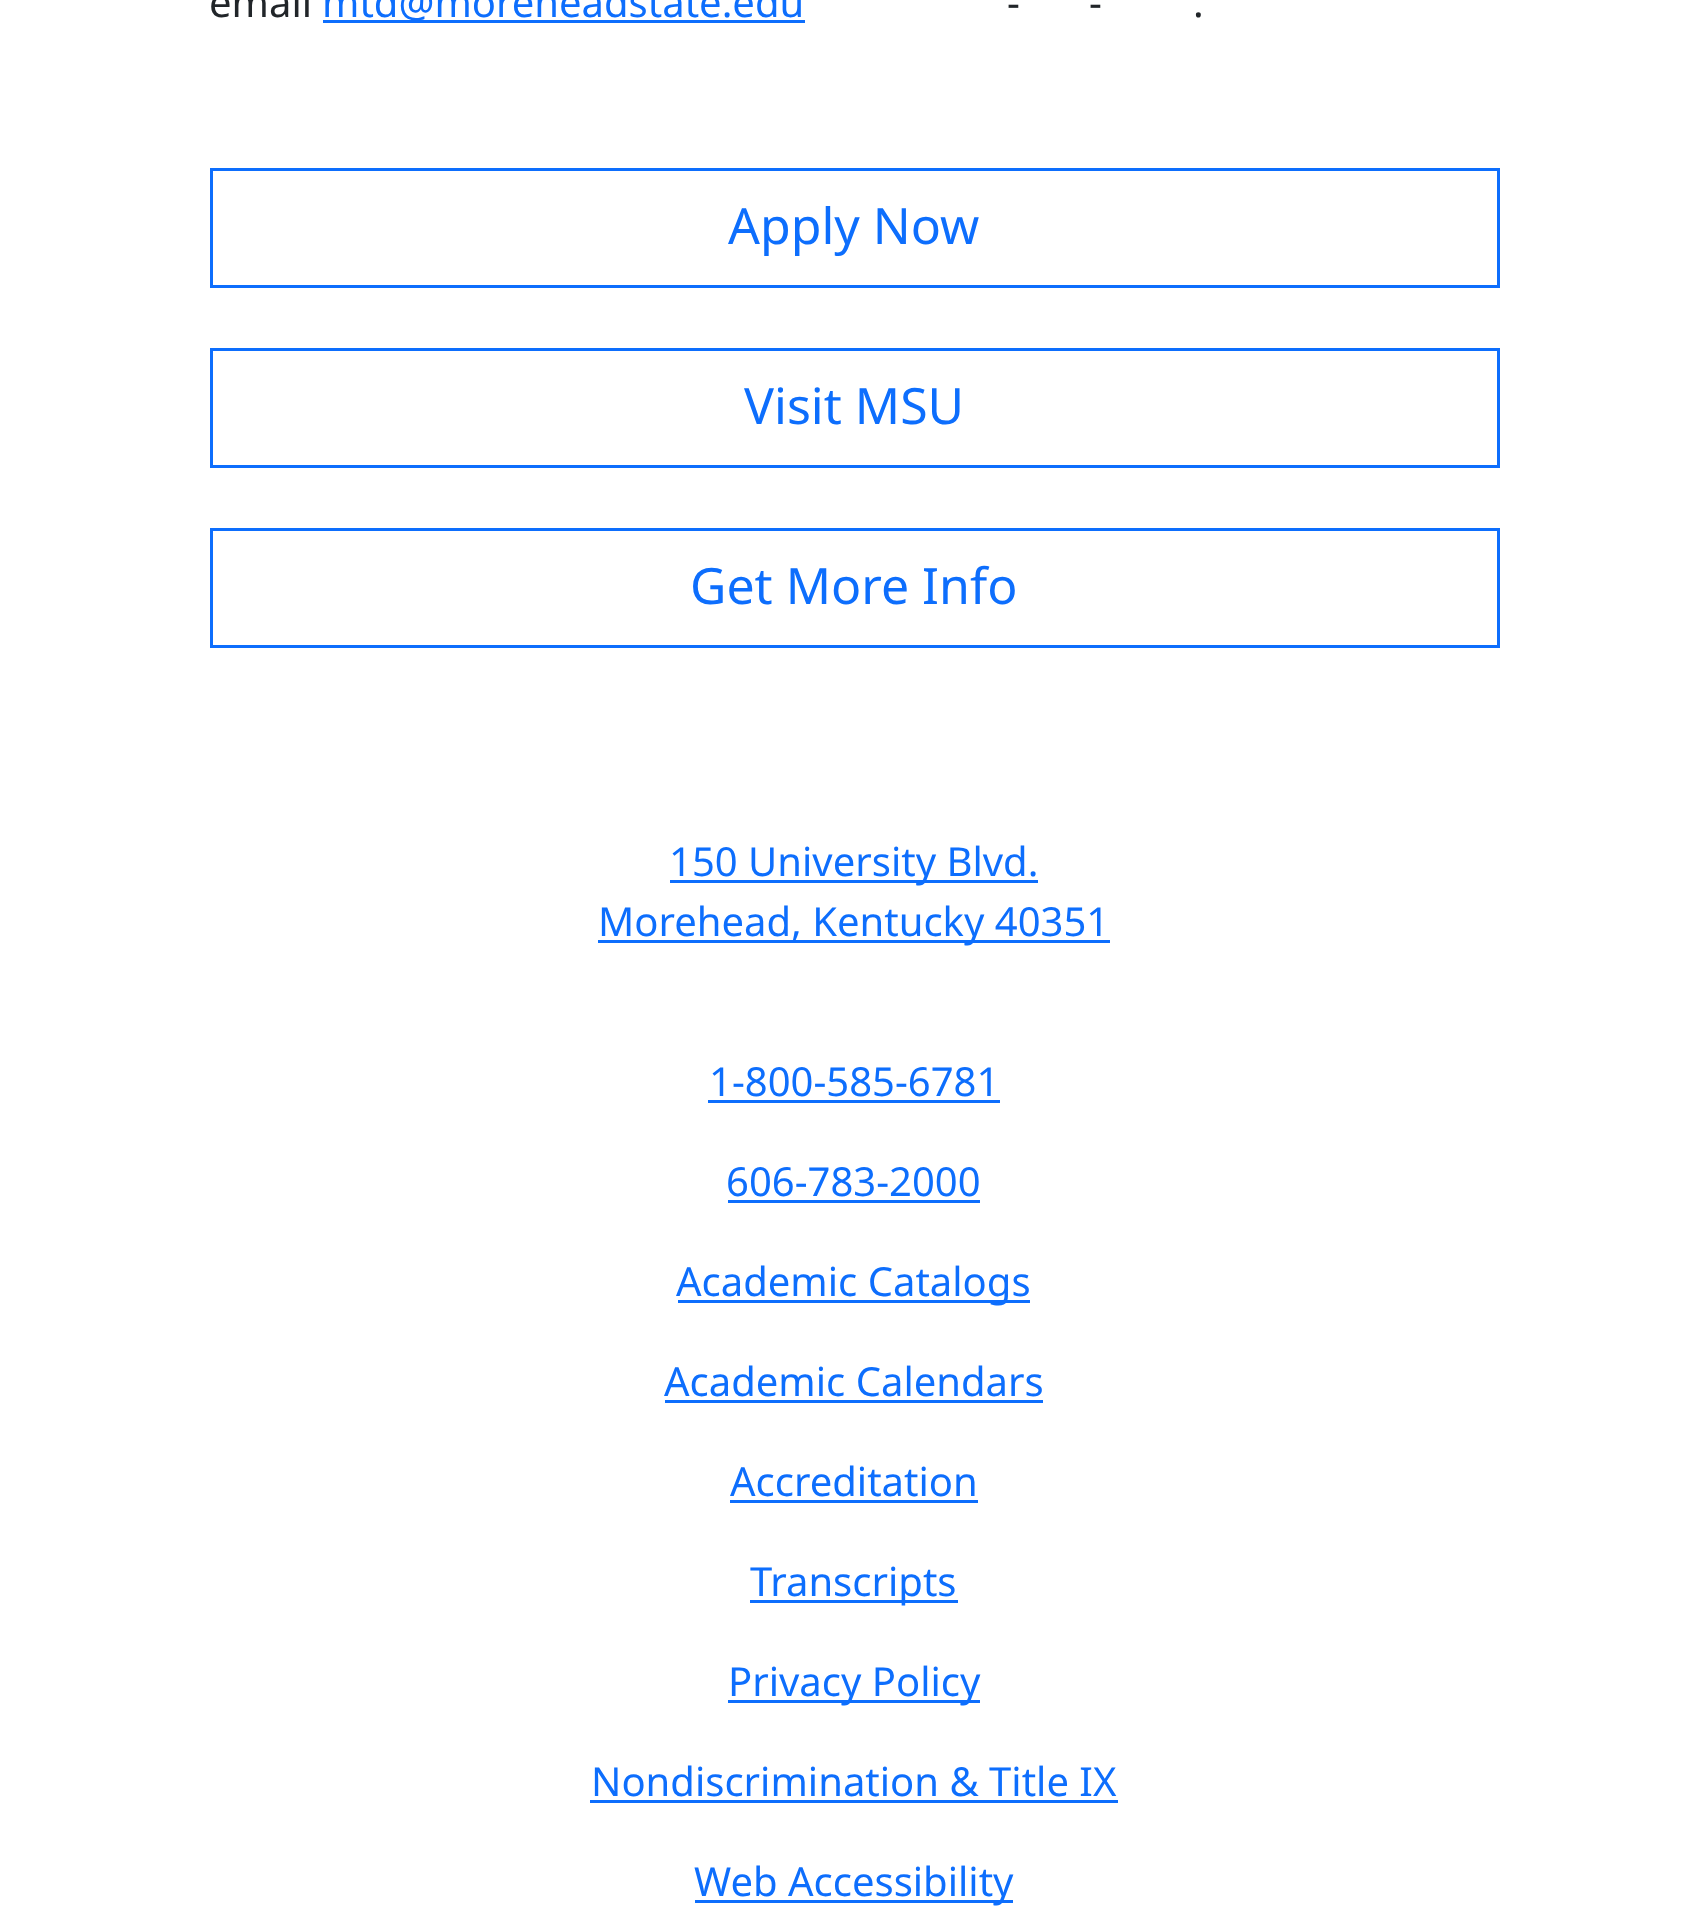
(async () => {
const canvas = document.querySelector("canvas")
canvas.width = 1706
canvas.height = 1926
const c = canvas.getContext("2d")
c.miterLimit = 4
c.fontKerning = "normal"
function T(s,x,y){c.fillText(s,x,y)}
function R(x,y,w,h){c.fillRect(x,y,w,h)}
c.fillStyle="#fff"
R(0,0,1706,1926)
c.font="40px Noto Sans"
c.fillStyle="#212529"
T("email",209,17)
c.fillStyle="#0d6efd"
R(323,20,482,3)
T("mtd@moreheadstate.edu",322,17)
c.fillStyle="#212529"
T("-",1007,17)
T("-",1089,17)
T(".",1193,17)
c.strokeStyle="#0d6efd"
c.lineWidth=3
c.strokeRect(211.5,169.5,1287,117)
c.font="50px Noto Sans"
c.fillStyle="#0d6efd"
T("Apply Now",728,244)
c.strokeRect(211.5,349.5,1287,117)
T("Visit MSU",744,424)
c.strokeRect(211.5,529.5,1287,117)
T("Get More Info",690,604)
R(670,880,368,3)
c.font="40px Noto Sans"
T("150 University Blvd.",669,876)
R(598,940,512,3)
T("Morehead, Kentucky 40351",598,936)
T("1-800-585-6781",709,1096)
R(708,1100,292,3)
T("606-783-2000",726,1196)
R(728,1200,252,3)
R(678,1300,352,3)
T("Academic Catalogs",676,1296)
T("Academic Calendars",664,1396)
R(665,1400,378,3)
T("Accreditation",730,1496)
R(730,1500,248,3)
R(750,1600,208,3)
T("Transcripts",750,1596)
R(728,1700,252,3)
T("Privacy Policy",728,1696)
T("Nondiscrimination & Title IX",591,1796)
R(590,1800,528,3)
R(695,1900,318,3)
T("Web Accessibility",694,1896)
})()
